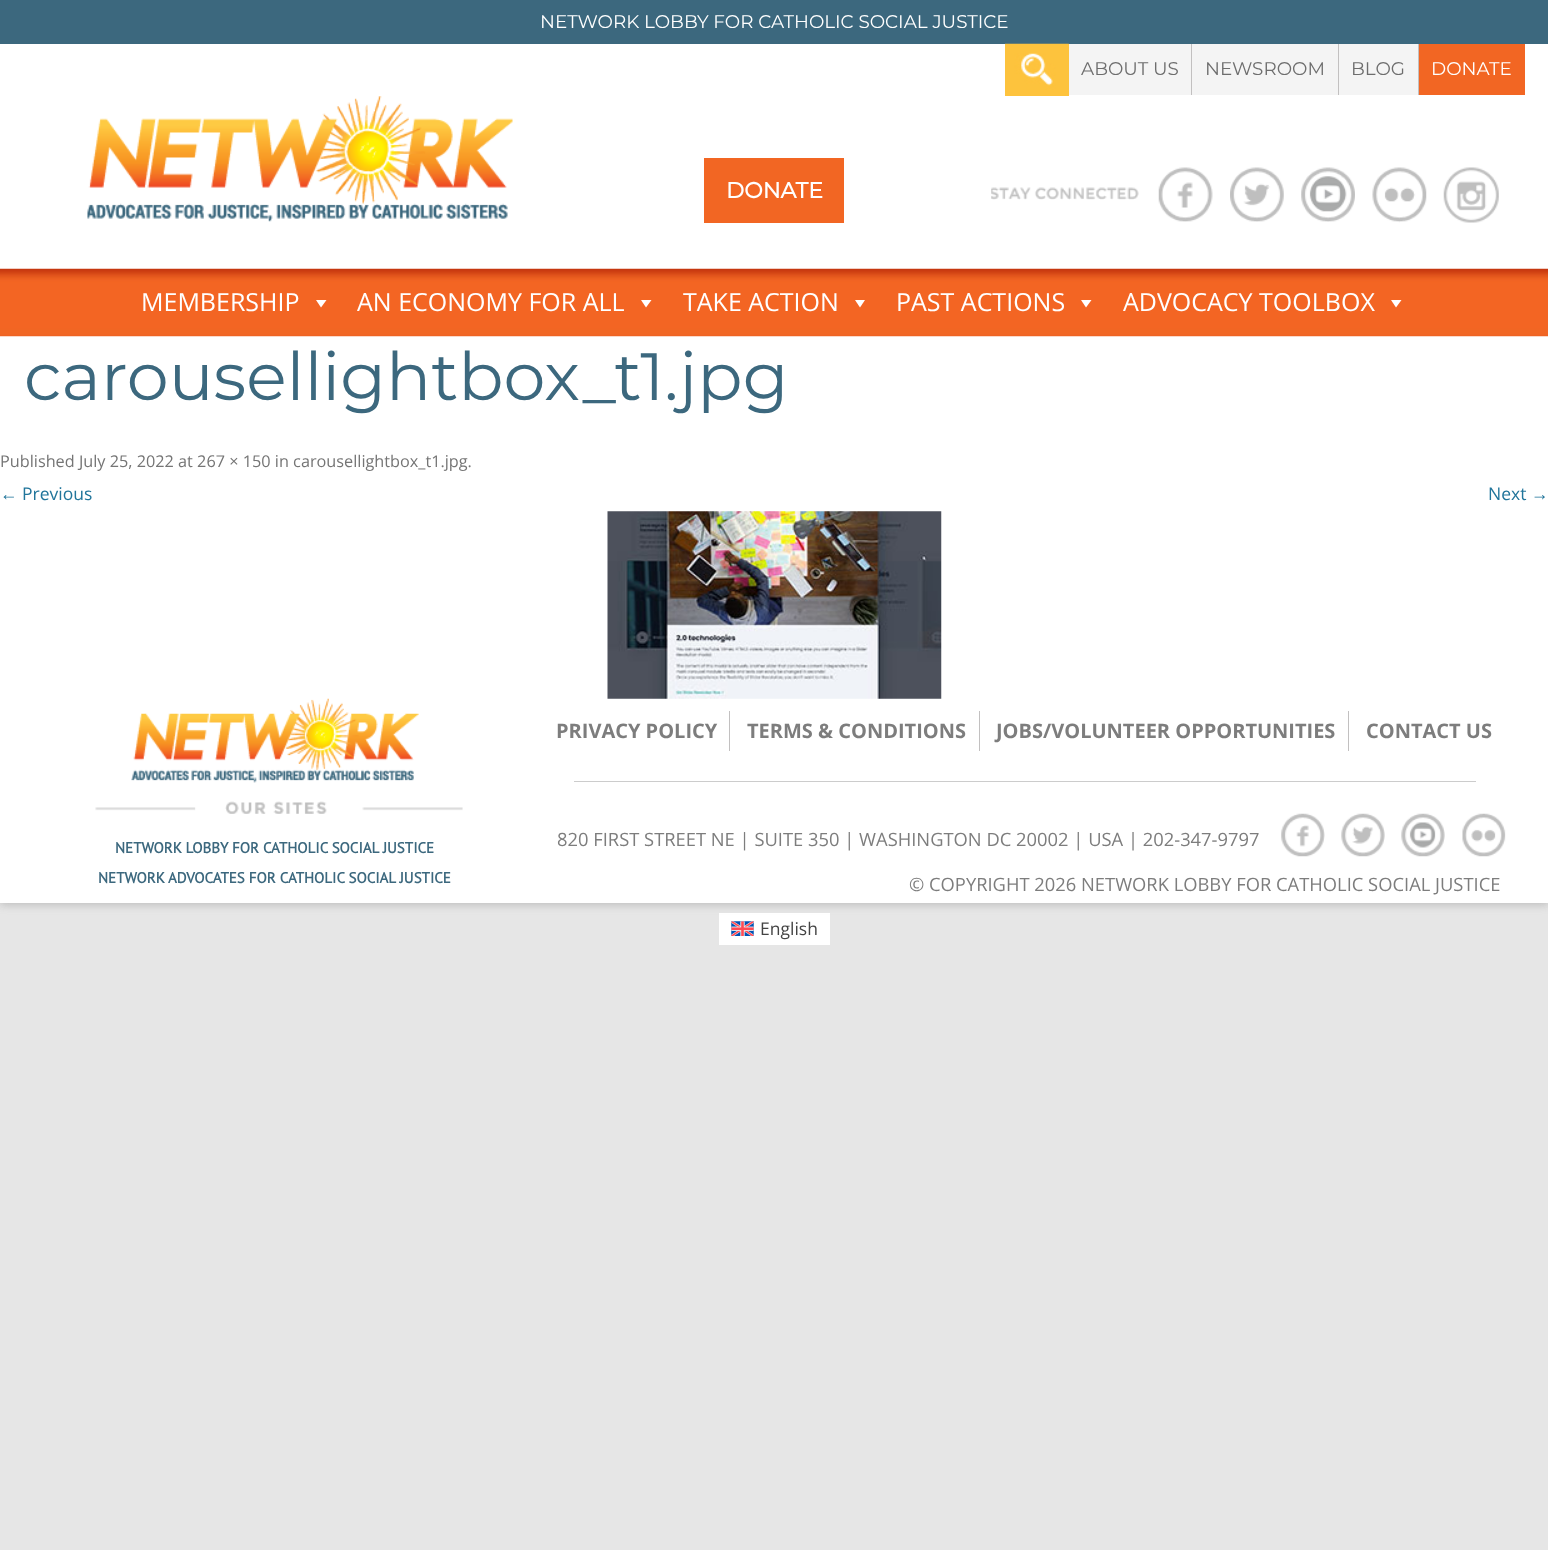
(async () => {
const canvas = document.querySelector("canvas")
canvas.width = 1548
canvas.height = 1550
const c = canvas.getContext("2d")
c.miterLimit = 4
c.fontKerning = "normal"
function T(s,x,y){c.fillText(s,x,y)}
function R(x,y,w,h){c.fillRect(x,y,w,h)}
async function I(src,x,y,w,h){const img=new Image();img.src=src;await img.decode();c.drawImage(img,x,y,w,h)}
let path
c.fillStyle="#e6e6e6"
R(0,0,1548,1550)
c.fillStyle="#fff"
R(719,913,111,32)
c.fillStyle="#6464644d"
c.filter="blur(4px)"
c.beginPath()
c.rect(0,3,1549,902)
c.fill()
c.filter="none"
c.fillStyle="#fff"
R(0,44,1548,859)
c.fillStyle="#3c687e"
R(0,0,1548,44)
c.font="100 18.35px Montserrat"
c.fillStyle="#fff"
T("NETWORK LOBBY FOR CATHOLIC SOCIAL JUSTICE",540,28)
c.fillStyle="#fec33d"
R(1005,44,64,52)
await I("1.png",1005,43,64,47)
c.fillStyle="#f4f4f4"
R(1069,44,269,51)
c.fillStyle="#6d6d6d"
T("ABOUT US",1081,75)
c.fillStyle="#c2c0c0"
R(1191,44,1,51)
c.fillStyle="#6d6d6d"
T("NEWSROOM",1205,75)
c.fillStyle="#c2c0c0"
R(1338,44,1,51)
c.fillStyle="#f4f4f4"
R(1339,44,79,51)
c.fillStyle="#6d6d6d"
T("BLOG",1351,75)
c.fillStyle="#c2c0c0"
R(1418,44,1,51)
c.fillStyle="#f26623"
R(1419,44,106,51)
c.fillStyle="#fff"
T("DONATE",1431,75)
await I("2.png",87,96,426,126)
c.fillStyle="#f26623"
R(704,158,140,65)
c.font="bold 22px Montserrat"
c.fillStyle="#fff"
T("DONATE",726,198)
await I("3.png",991,187,148,13)
await I("4.png",1158,167,55,55)
await I("5.png",1230,167,54,55)
await I("6.png",1301,167,54,55)
await I("7.png",1372,167,55,56)
await I("8.png",1443,167,56,56)
await I("9.png",0,268,1548,69)
c.font="25px Open Sans"
T("MEMBERSHIP",141,311)
path = new Path2D("M326.5 300l-5.5 7.5l-5-7.5z")
c.fill(path)
T("AN ECONOMY FOR ALL",357,311)
path = new Path2D("M651.5 300l-5.5 7.5l-5-7.5z")
c.fill(path)
T("TAKE ACTION",683,311)
path = new Path2D("M865 300l-5 7.5l-5-7.5z")
c.fill(path)
T("PAST ACTIONS",896,311)
path = new Path2D("M1091.5 300l-5.5 7.5l-5-7.5z")
c.fill(path)
T("ADVOCACY TOOLBOX",1123,311)
path = new Path2D("M1401.5 300l-5.5 7.5l-5-7.5z")
c.fill(path)
c.font="100 66.75px Montserrat"
c.fillStyle="#3c687e"
T("carousellightbox_t1.jpg",24,400)
c.font="16.25px Open Sans"
c.fillStyle="#757575"
T("Published July 25, 2022 at 267 × 150 in carousellightbox_t1.jpg.",0,467)
c.font="17.5px Liberation Sans"
c.fillStyle="#21759b"
T("←",0,500)
c.font="17.5px Open Sans"
T("Previous",22,500)
T("Next",1488,500)
c.font="17.5px Liberation Sans"
T("→",1531,500)
await I("10.png",607,511,335,188)
await I("11.png",95,698,368,116)
c.font="bold 15px PT Sans"
c.fillStyle="#3c687e"
T("NETWORK LOBBY FOR CATHOLIC SOCIAL JUSTICE",115,853)
T("NETWORK ADVOCATES FOR CATHOLIC SOCIAL JUSTICE",98,883)
c.fillStyle="#c2c0c0"
R(729,711,1,40)
c.font="bold 20px Open Sans"
c.fillStyle="#7d7d7d"
T("PRIVACY POLICY",556,738)
c.fillStyle="#c2c0c0"
R(979,711,1,40)
c.fillStyle="#7d7d7d"
T("TERMS & CONDITIONS",747,738)
c.fillStyle="#c2c0c0"
R(1348,711,1,40)
c.fillStyle="#7d7d7d"
T("JOBS/VOLUNTEER OPPORTUNITIES",996,738)
T("CONTACT US",1366,738)
c.fillStyle="#ccc"
R(574,781,902,1)
c.font="18.35px Open Sans"
c.fillStyle="#7d7d7d"
T("820 FIRST STREET NE | SUITE 350 | WASHINGTON DC 20002 | USA | 202-347-9797",557,846)
await I("12.png",1281,813,44,44)
await I("13.png",1341,813,44,44)
await I("14.png",1401,813,44,44)
await I("15.png",1462,813,44,44)
T("© COPYRIGHT 2026 NETWORK LOBBY FOR CATHOLIC SOCIAL JUSTICE",909,891)
await I("16.png",731,921,23,15)
c.font="17.5px Open Sans"
c.fillStyle="#444"
T("English",760,935)
})()
